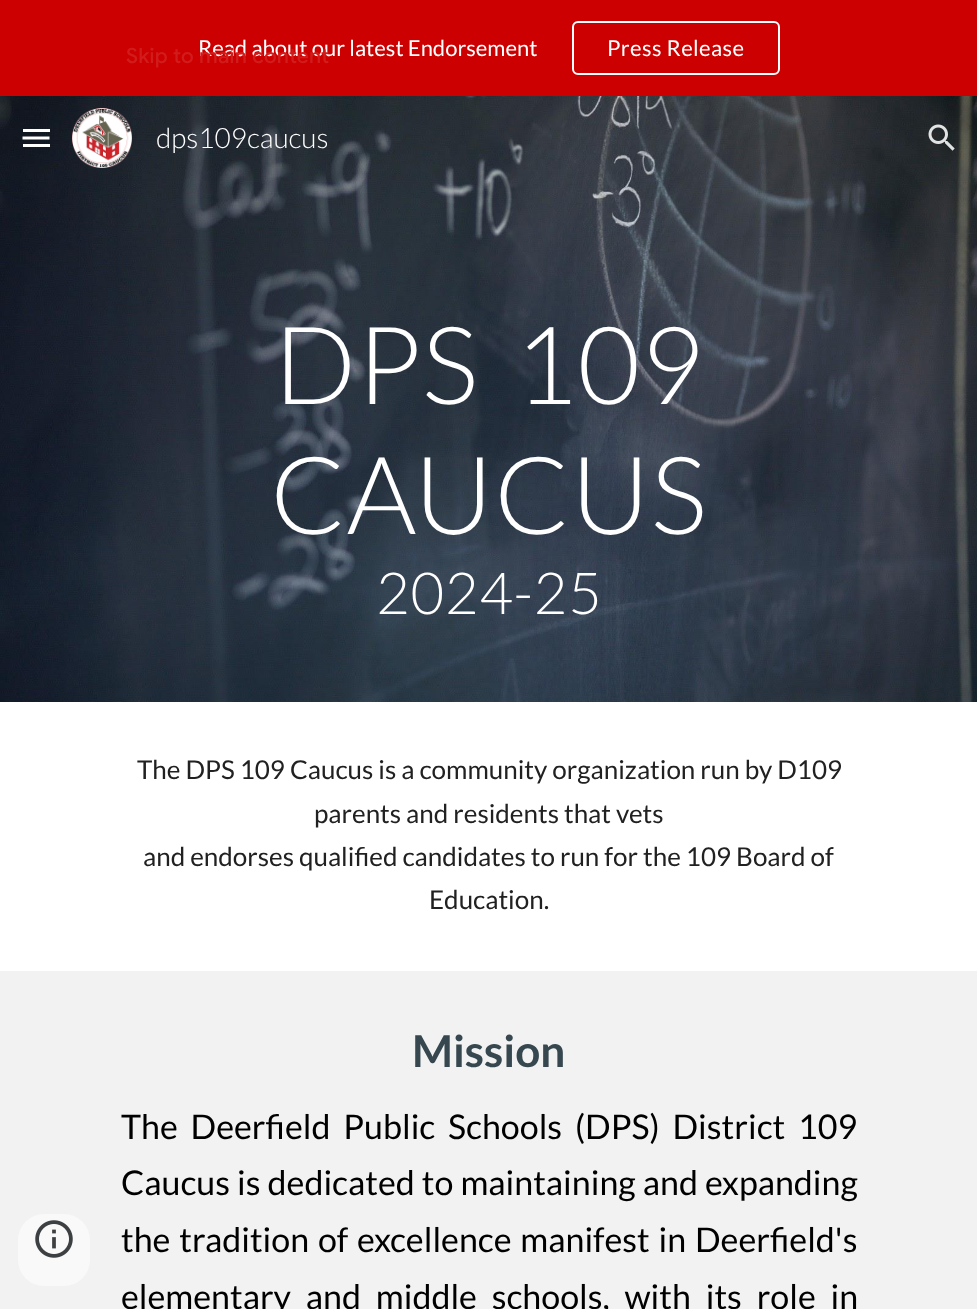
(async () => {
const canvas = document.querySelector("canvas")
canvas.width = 977
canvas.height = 1309
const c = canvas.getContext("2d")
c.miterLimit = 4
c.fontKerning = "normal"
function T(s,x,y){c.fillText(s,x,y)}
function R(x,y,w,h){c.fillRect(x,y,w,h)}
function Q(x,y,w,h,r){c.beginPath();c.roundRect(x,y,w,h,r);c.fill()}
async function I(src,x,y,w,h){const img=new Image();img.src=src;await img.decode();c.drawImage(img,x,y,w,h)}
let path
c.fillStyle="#fff"
R(0,0,977,1309)
c.fillStyle="#c00"
R(0,0,977,96)
c.font="22px Lato"
c.fillStyle="#fff"
T("Read about our latest Endorsement",198,56)
c.beginPath()
c.roundRect(573,22,206,52,5)
c.strokeStyle="#fff"
c.lineWidth=2
c.stroke()
c.letterSpacing="0.4px"
T("Press Release",607,56)
await I("4.png",0,96,977,606)
R(23,129,27,3)
path = new Path2D("M22.5 138h27")
c.lineWidth=3
c.stroke(path)
R(23,144,27,3)
await I("1.png",72,108,60,60)
c.letterSpacing="0px"
c.font="300 28px Lato"
T("dps109caucus",156,148)
await I("2.png",928,124,27,27)
c.fillStyle="#f2f2f2"
R(0,971,977,338)
c.fillStyle="#f9f9f9"
Q(18,1214,72,72,26)
await I("3.png",35,1220,38,38)
c.letterSpacing="0.75px"
c.font="300 108px Lato"
c.fillStyle="#fff"
T("DPS",274,404)
T("109",514,404)
T("CAUCUS",270,534)
c.font="300 58px Lato"
T("2024-25",376,614)
c.letterSpacing="0px"
c.font="26px Lato"
c.fillStyle="#212121"
T("The DPS 109 Caucus is a community organization run by D109",137,779)
T("parents and residents that vets",314,823)
T("and endorses qualified candidates to run for the 109 Board of",143,866)
T("Education.",429,909)
c.font="bold 44px Lato"
c.fillStyle="#37474f"
T("Mission",412,1067)
c.wordSpacing="6.25px"
c.font="34px Lato"
c.fillStyle="#000"
T("The Deerfield Public Schools (DPS) District 109",121,1139)
c.wordSpacing="0.5px"
T("Caucus is dedicated to maintaining and expanding",121,1195)
c.wordSpacing="2.25px"
T("the tradition of excellence manifest in Deerfield's",121,1252)
c.wordSpacing="8.25px"
T("elementary and middle schools, with its role in",121,1309)
c.letterSpacing="0.25px"
c.wordSpacing="0px"
c.font="500 21px Google Sans"
c.fillStyle="#d21c1c"
T("Skip to main content",126,63)
})()
